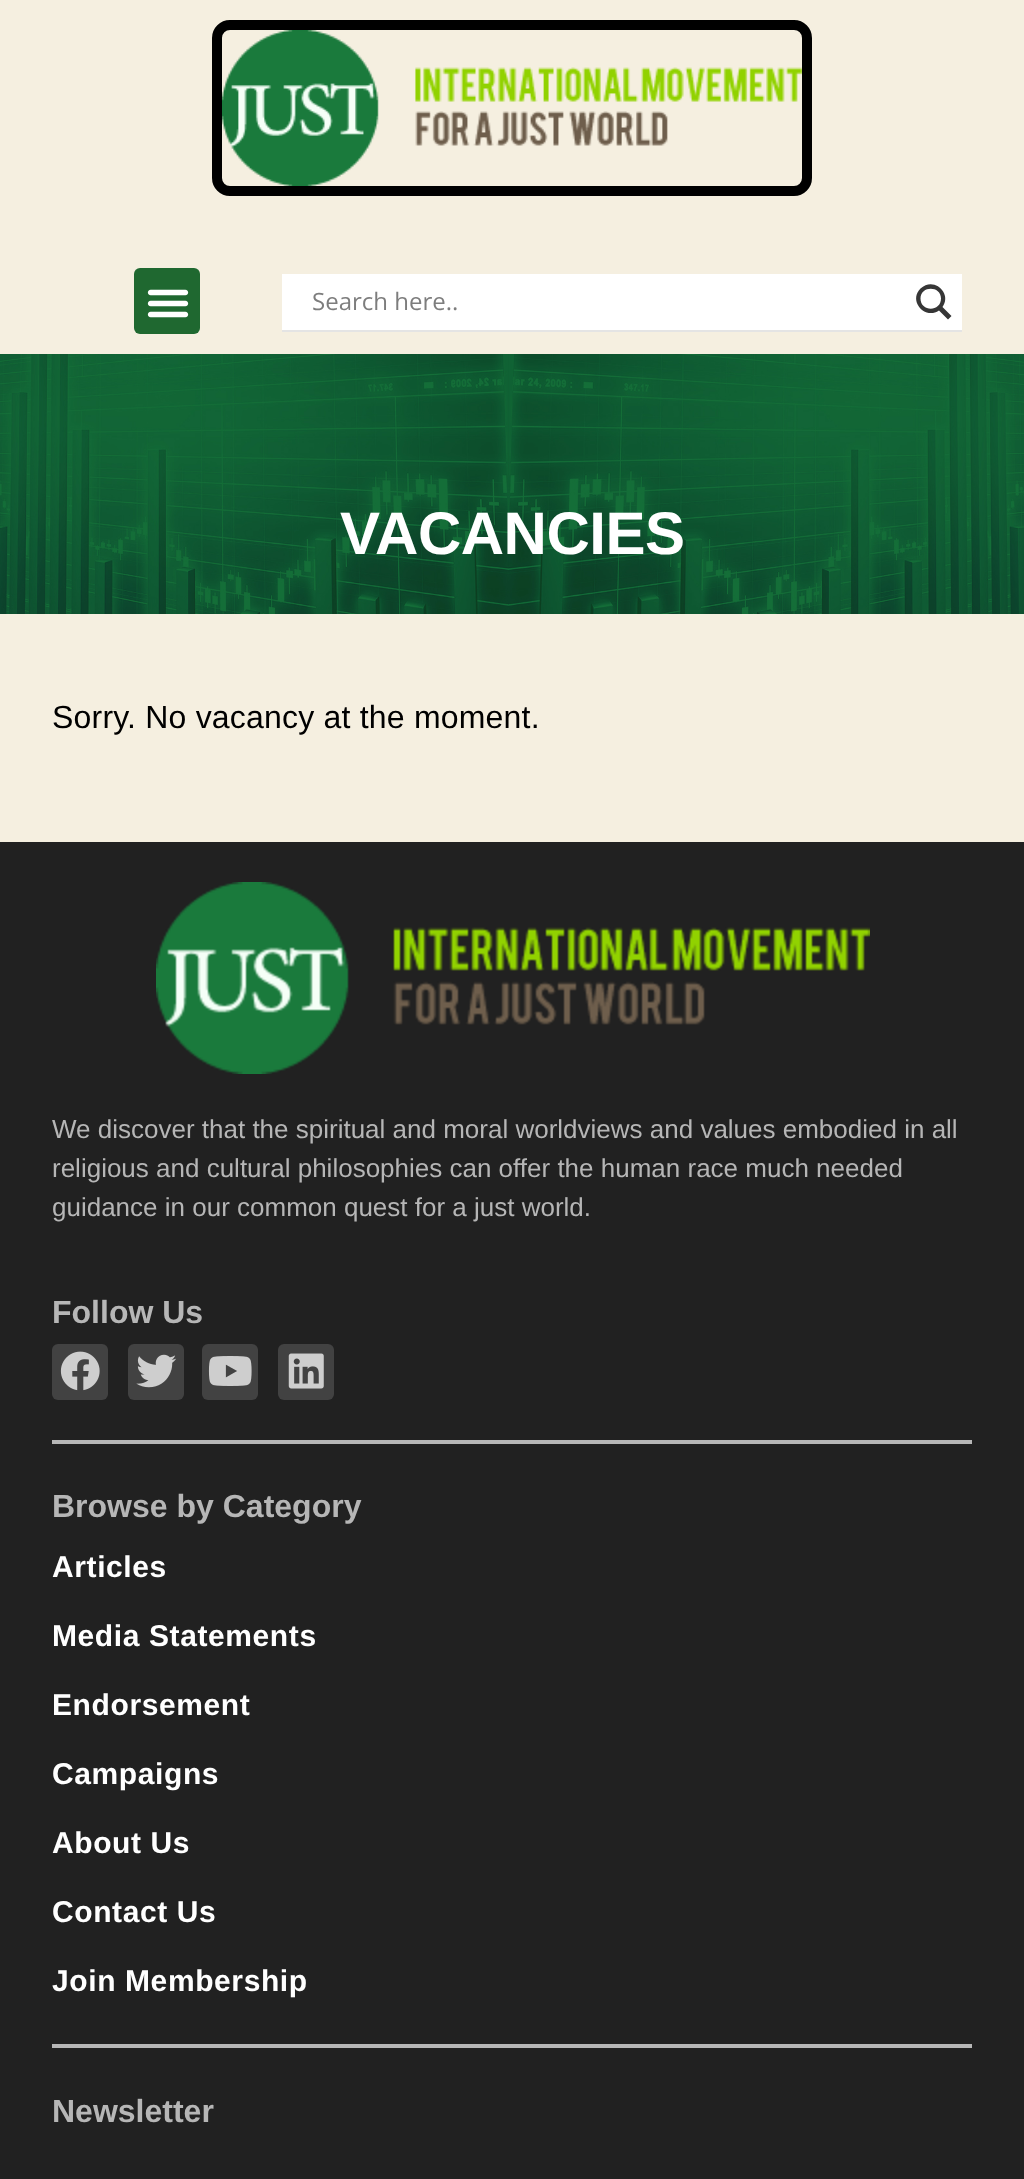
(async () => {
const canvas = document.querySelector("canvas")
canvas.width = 1024
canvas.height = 2179
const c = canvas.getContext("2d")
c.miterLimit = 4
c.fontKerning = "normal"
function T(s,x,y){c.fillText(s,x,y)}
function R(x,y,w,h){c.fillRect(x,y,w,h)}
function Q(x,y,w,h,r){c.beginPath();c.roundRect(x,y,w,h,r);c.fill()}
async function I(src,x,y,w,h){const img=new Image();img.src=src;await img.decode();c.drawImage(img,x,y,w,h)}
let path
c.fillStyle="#f5efe0"
R(0,0,1024,2179)
c.beginPath()
c.roundRect(217,25,590,166,13)
c.strokeStyle="#000"
c.lineWidth=10
c.stroke()
await I("1.png",222,30,580,156)
c.fillStyle="#1f6830"
Q(134,268,66,66,6)
await I("2.png",147,289,42,29)
c.fillStyle="#e4e4e4"
R(282,330,680,2)
c.fillStyle="#fff"
R(282,274,680,56)
c.font="24px Open Sans"
c.fillStyle="#7d7d7d"
T("Search here..",312,310)
c.fillStyle="#363636"
path = new Path2D("M951.5 316l-9-9c10-14-9-31-22-18.5c-12.5 12.5 4.5 31.5 18.5 22l9 9zm-31-17.5c0-13 20.5-13 20.5 0c0 13.5-20.5 13.5-20.5 0z")
c.fill(path)
await I("3.png",0,354,1024,260)
c.letterSpacing="-0.5px"
c.font="bold 60px Liberation Sans"
c.fillStyle="#fff"
T("VACANCIES",340,554)
c.letterSpacing="0.2px"
c.font="32px Liberation Sans"
c.fillStyle="#000"
T("Sorry. No vacancy at the moment.",52,728)
c.fillStyle="#212121"
R(0,842,1024,1337)
c.fillStyle="#b7b7b7"
R(52,1440,920,4)
await I("4.png",156,882,714,192)
c.letterSpacing="0px"
c.font="26px Liberation Sans"
c.fillStyle="#b6b6b6"
T("We discover that the spiritual and moral worldviews and values embodied in all",52,1138)
T("religious and cultural philosophies can offer the human race much needed",52,1177)
T("guidance in our common quest for a just world.",52,1216)
c.font="bold 32px Liberation Sans"
T("Follow Us",52,1323)
c.fillStyle="#424242"
Q(52,1344,56,56,6)
await I("5.png",60,1351,40,40)
Q(128,1344,56,56,6)
await I("6.png",136,1354,41,34)
Q(202,1344,56,56,6)
await I("7.png",208,1356,44,30)
Q(278,1344,56,56,6)
await I("8.png",288,1353,36,36)
c.fillStyle="#b7b7b7"
R(52,2044,920,4)
c.fillStyle="#b6b6b6"
T("Browse by Category",52,1517)
c.letterSpacing="0.6px"
c.font="bold 30px Liberation Sans"
c.fillStyle="#fff"
T("Articles",52,1577)
T("Media Statements",52,1646)
T("Endorsement",52,1715)
T("Campaigns",52,1784)
T("About Us",52,1853)
T("Contact Us",52,1922)
T("Join Membership",52,1991)
c.letterSpacing="0px"
c.font="bold 32px Liberation Sans"
c.fillStyle="#b6b6b6"
T("Newsletter",52,2122)
})()
